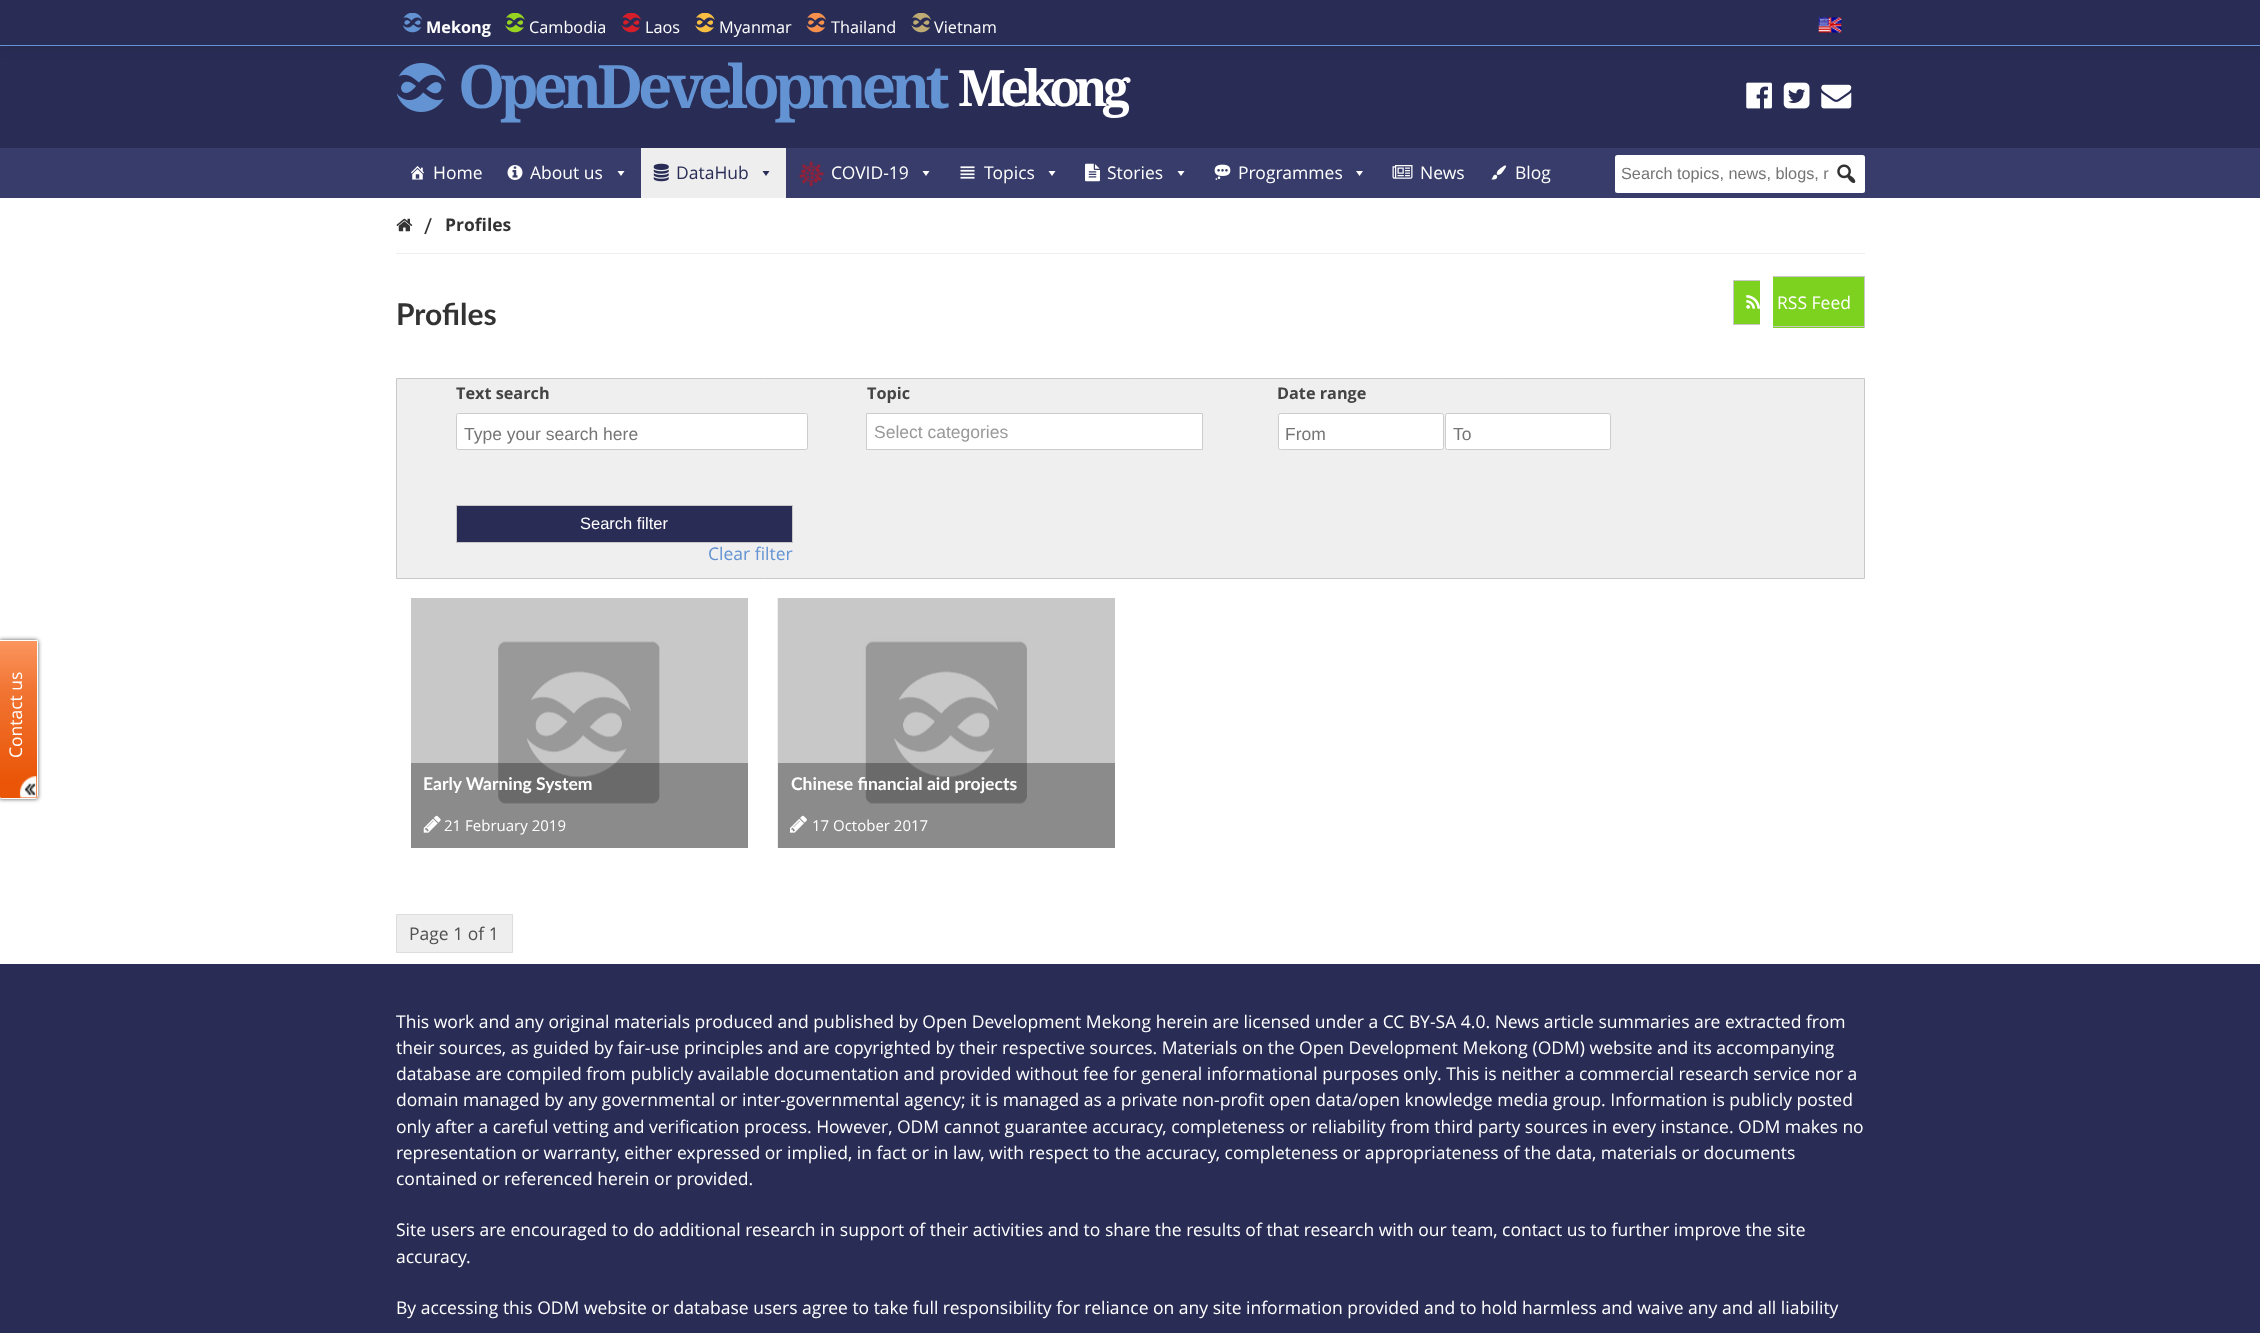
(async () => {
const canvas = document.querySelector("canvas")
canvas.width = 2260
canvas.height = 1333
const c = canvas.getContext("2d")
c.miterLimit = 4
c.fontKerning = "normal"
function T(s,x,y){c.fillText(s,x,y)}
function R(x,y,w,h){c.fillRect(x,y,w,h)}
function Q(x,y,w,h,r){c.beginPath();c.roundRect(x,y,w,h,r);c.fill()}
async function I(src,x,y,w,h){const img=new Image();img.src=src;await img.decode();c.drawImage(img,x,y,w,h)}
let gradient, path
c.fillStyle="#fff"
R(0,0,2260,1333)
c.fillStyle="#292d56"
R(0,46,2260,102)
await I("8.png",396,63,50,49)
c.fillStyle="#0000001a"
c.filter="blur(6px)"
c.beginPath()
c.rect(0,1,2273,47)
c.fill()
c.filter="none"
c.fillStyle="#292d56"
R(0,0,2260,45)
c.fillStyle="#6393d2"
R(0,45,2260,1)
await I("1.png",403,13,20,20)
c.font="bold 16.25px Open Sans"
c.fillStyle="#fff"
T("Mekong",426,33)
await I("2.png",505,13,20,20)
c.font="16.25px Open Sans"
T("Cambodia",529,33)
await I("3.png",621,13,20,20)
T("Laos",645,33)
await I("4.png",695,13,20,20)
T("Myanmar",719,33)
await I("5.png",806,13,20,20)
T("Thailand",831,33)
await I("6.png",911,13,20,20)
T("Vietnam",934,33)
await I("7.png",1818,17,24,16)
c.letterSpacing="-5.25px"
c.font="bold 60px Droid Serif"
c.fillStyle="#6393d2"
T("OpenDevelopment",458,108)
c.font="bold 50px Droid Serif"
c.fillStyle="#fff"
T("Mekong",958,106)
await I("9.png",1746,82,26,27)
await I("10.png",1783,82,27,27)
await I("11.png",1821,84,31,25)
c.fillStyle="#373c6a"
R(0,148,2260,50)
await I("12.png",411,166,13,14)
c.letterSpacing="0px"
c.font="17.5px Open Sans"
c.fillStyle="#fff"
T("Home",433,179)
await I("13.png",507,165,16,15)
T("About us",530,179)
path = new Path2D("M624.5 171l-3.5 5l-3.5-5z")
c.fill(path)
c.fillStyle="#eee"
R(641,148,145,50)
await I("14.png",653,163,16,19)
c.fillStyle="#292d56"
T("DataHub",676,179)
path = new Path2D("M769.5 171l-3.5 5l-3.5-5z")
c.fill(path)
await I("15.png",798,161,26,26)
c.fillStyle="#fff"
T("COVID-19",831,179)
path = new Path2D("M929.5 171l-3.5 5l-3.5-5z")
c.fill(path)
await I("16.png",960,166,15,13)
T("Topics",984,179)
path = new Path2D("M1055.5 171l-3.5 5l-3.5-5z")
c.fill(path)
await I("17.png",1085,163,15,19)
T("Stories",1107,179)
path = new Path2D("M1184.5 171l-3.5 5l-3.5-5z")
c.fill(path)
await I("18.png",1214,164,17,16)
T("Programmes",1238,179)
path = new Path2D("M1363 171l-3.5 5l-3.5-5z")
c.fill(path)
await I("19.png",1392,165,21,14)
T("News",1420,179)
await I("20.png",1491,165,16,15)
T("Blog",1515,179)
Q(1615,155,250,38,2.5)
c.font="16.25px Liberation Sans"
c.fillStyle="#757575"
T("Search topics, news, blogs, r",1621,179)
await I("21.png",1837,164,19,19)
c.fillStyle="#eee"
R(396,253,1469,1)
await I("22.png",396,218,17,14)
c.font="22px Open Sans"
c.fillStyle="#333"
T("/",424,234)
c.font="bold 17.5px Open Sans"
T("Profiles",445,231)
c.fillStyle="#555"
c.filter="blur(2px)"
c.beginPath()
c.roundRect(-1,640,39,159,2.5)
c.fill()
c.filter="none"
gradient = c.createLinearGradient(18,641,18,798)
gradient.addColorStop(0,"#feccb1")
gradient.addColorStop(0,"#fb955e")
gradient.addColorStop(.32,"#f17432")
gradient.addColorStop(.9,"#ea5507")
c.fillStyle = gradient
R(0,641,38,157)
path = new Path2D("M-.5 640.5h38v156c0 1-1 2-2 2h-34c-1 0-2-1-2-2z")
c.strokeStyle="#fff"
c.stroke(path)
c.font="17.5px Open Sans"
c.fillStyle="#fff"
c.save()
c.translate(22,758)
c.rotate(-90 * Math.PI / 180)
c.fillText("Contact us",0,0)
c.restore()
await I("23.png",19,776,18,22)
c.font="bold 30px Lato"
c.fillStyle="#333"
T("Profiles",396,325)
c.fillStyle="#7dd220"
R(1734,281,26,43)
c.fillStyle="#c8c8c8"
R(1733,280,27,1)
R(1733,324,27,1)
R(1733,280,1,45)
c.fillStyle="#7dd220"
R(1773,277,91,51)
c.fillStyle="#c8c8c8"
R(1773,276,92,1)
R(1864,276,1,52)
R(1773,326,92,1)
await I("24.png",1746,295,14,14)
c.font="17.5px Open Sans"
c.fillStyle="#fff"
T("RSS Feed",1777,309)
c.fillStyle="#efefef"
c.beginPath()
c.rect(396.5,378.5,1468,200)
c.fill()
c.strokeStyle="#c8c8c8"
c.stroke()
c.font="bold 16.25px Open Sans"
c.fillStyle="#444"
T("Text search",456,399)
c.fillStyle="#fff"
c.beginPath()
c.roundRect(456.5,413.5,351,36,2)
c.fill()
c.strokeStyle="#ccc"
c.stroke()
c.font="17.5px Liberation Sans"
c.fillStyle="#757575"
T("Type your search here",464,440)
c.font="bold 16.25px Open Sans"
c.fillStyle="#444"
T("Topic",867,399)
c.fillStyle="#fff"
c.beginPath()
c.rect(866.5,413.5,336,36)
c.fill()
c.stroke()
c.font="17.5px Liberation Sans"
c.fillStyle="#999"
T("Select categories",874,438)
c.font="bold 16.25px Open Sans"
c.fillStyle="#444"
T("Date range",1277,399)
c.fillStyle="#fff"
c.beginPath()
c.roundRect(1278.5,413.5,165,36,2)
c.fill()
c.stroke()
c.font="17.5px Liberation Sans"
c.fillStyle="#757575"
T("From",1285,440)
c.fillStyle="#fff"
c.beginPath()
c.roundRect(1445.5,413.5,165,36,2)
c.fill()
c.stroke()
c.fillStyle="#757575"
T("To",1453,440)
c.fillStyle="#292d56"
c.beginPath()
c.rect(456.5,505.5,336,37)
c.fill()
c.strokeStyle="#c8c8c8"
c.stroke()
c.font="16.5px Liberation Sans"
c.fillStyle="#fff"
T("Search filter",580,529)
c.font="17.5px Open Sans"
c.fillStyle="#6393d2"
T("Clear filter",708,560)
c.fillStyle="#c8c8c8"
R(411,598,337,250)
await I("25.png",498,641,162,163)
c.fillStyle="#0000004d"
R(411,763,337,85)
c.font="bold 17.5px Lato"
c.fillStyle="#fff"
T("Early Warning System",423,790)
await I("26.png",423,815,18,18)
c.font="15px Open Sans"
T("21 February 2019",444,831)
c.fillStyle="#c8c8c8"
R(1027,598,88,250)
await I("27.png",777,598,250,250)
c.fillStyle="#0000004d"
R(778,763,337,85)
c.font="bold 17.5px Lato"
c.fillStyle="#fff"
T("Chinese financial aid projects",791,790)
await I("28.png",790,815,17,18)
c.font="15px Open Sans"
T("17 October 2017",812,831)
c.fillStyle="#eee"
c.beginPath()
c.rect(396.5,914.5,116,38)
c.fill()
c.strokeStyle="#ddd"
c.stroke()
c.font="17.5px Open Sans"
c.fillStyle="#505050"
T("Page 1 of 1",409,940)
c.fillStyle="#292d56"
R(0,964,2260,369)
c.fillStyle="#fff"
T("This work and any original materials produced and published by Open Development Mekong herein are licensed under a CC BY-SA 4.0. News article summaries are extracted from",396,1028)
T("their sources, as guided by fair-use principles and are copyrighted by their respective sources. Materials on the Open Development Mekong (ODM) website and its accompanying",396,1054)
T("database are compiled from publicly available documentation and provided without fee for general informational purposes only. This is neither a commercial research service nor a",396,1080)
T("domain managed by any governmental or inter-governmental agency; it is managed as a private non-profit open data/open knowledge media group. Information is publicly posted",396,1106)
T("only after a careful vetting and verification process. However, ODM cannot guarantee accuracy, completeness or reliability from third party sources in every instance. ODM makes no",396,1133)
T("representation or warranty, either expressed or implied, in fact or in law, with respect to the accuracy, completeness or appropriateness of the data, materials or documents",396,1159)
T("contained or referenced herein or provided.",396,1185)
T("Site users are encouraged to do additional research in support of their activities and to share the results of that research with our team, contact us to further improve the site",396,1236)
T("accuracy.",396,1263)
T("By accessing this ODM website or database users agree to take full responsibility for reliance on any site information provided and to hold harmless and waive any and all liability",396,1314)
})()
